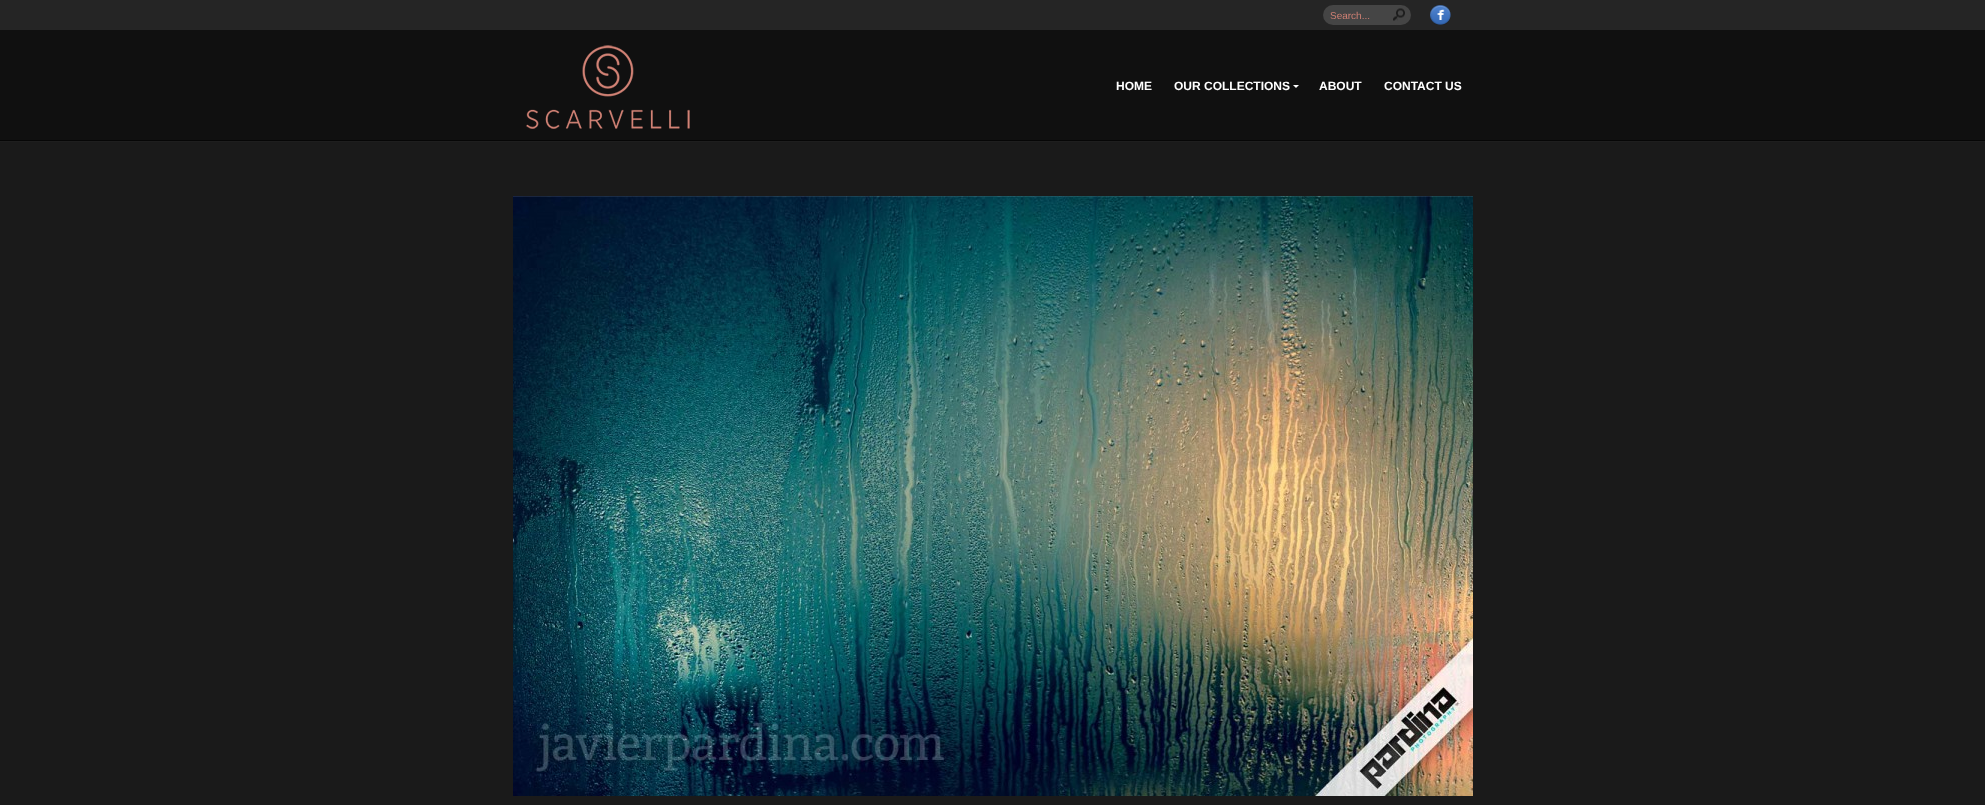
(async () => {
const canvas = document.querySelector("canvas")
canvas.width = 1985
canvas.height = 805
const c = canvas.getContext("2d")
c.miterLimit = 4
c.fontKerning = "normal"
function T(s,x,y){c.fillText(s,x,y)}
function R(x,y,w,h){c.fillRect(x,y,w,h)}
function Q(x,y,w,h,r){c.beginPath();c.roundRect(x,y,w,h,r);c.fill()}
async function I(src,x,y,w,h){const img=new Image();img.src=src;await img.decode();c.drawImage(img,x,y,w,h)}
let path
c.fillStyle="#1a1a1a"
R(0,0,1985,805)
c.fillStyle="#252525"
R(0,0,1985,30)
c.fillStyle="#454545"
Q(1323,5,88,20,10)
c.font="10px Liberation Sans"
c.fillStyle="#d08074"
T("Search...",1330,19)
await I("1.png",1393,8,12,13)
await I("2.png",1430,5,21,20)
c.fillStyle="#101010"
R(0,30,1985,110)
await I("3.png",0,140,1985,2)
await I("4.png",526,45,164,84)
c.font="bold 12px Liberation Sans"
c.fillStyle="#fff"
T("HOME",1116,90)
T("OUR COLLECTIONS",1174,90)
path = new Path2D("M1293 85h6l-3 3z")
c.fill(path)
T("ABOUT",1319,90)
T("CONTACT US",1384,90)
await I("5.png",513,196,960,600)
c.fillStyle="#ffffff1a"
R(513,196,960,1)
})()
